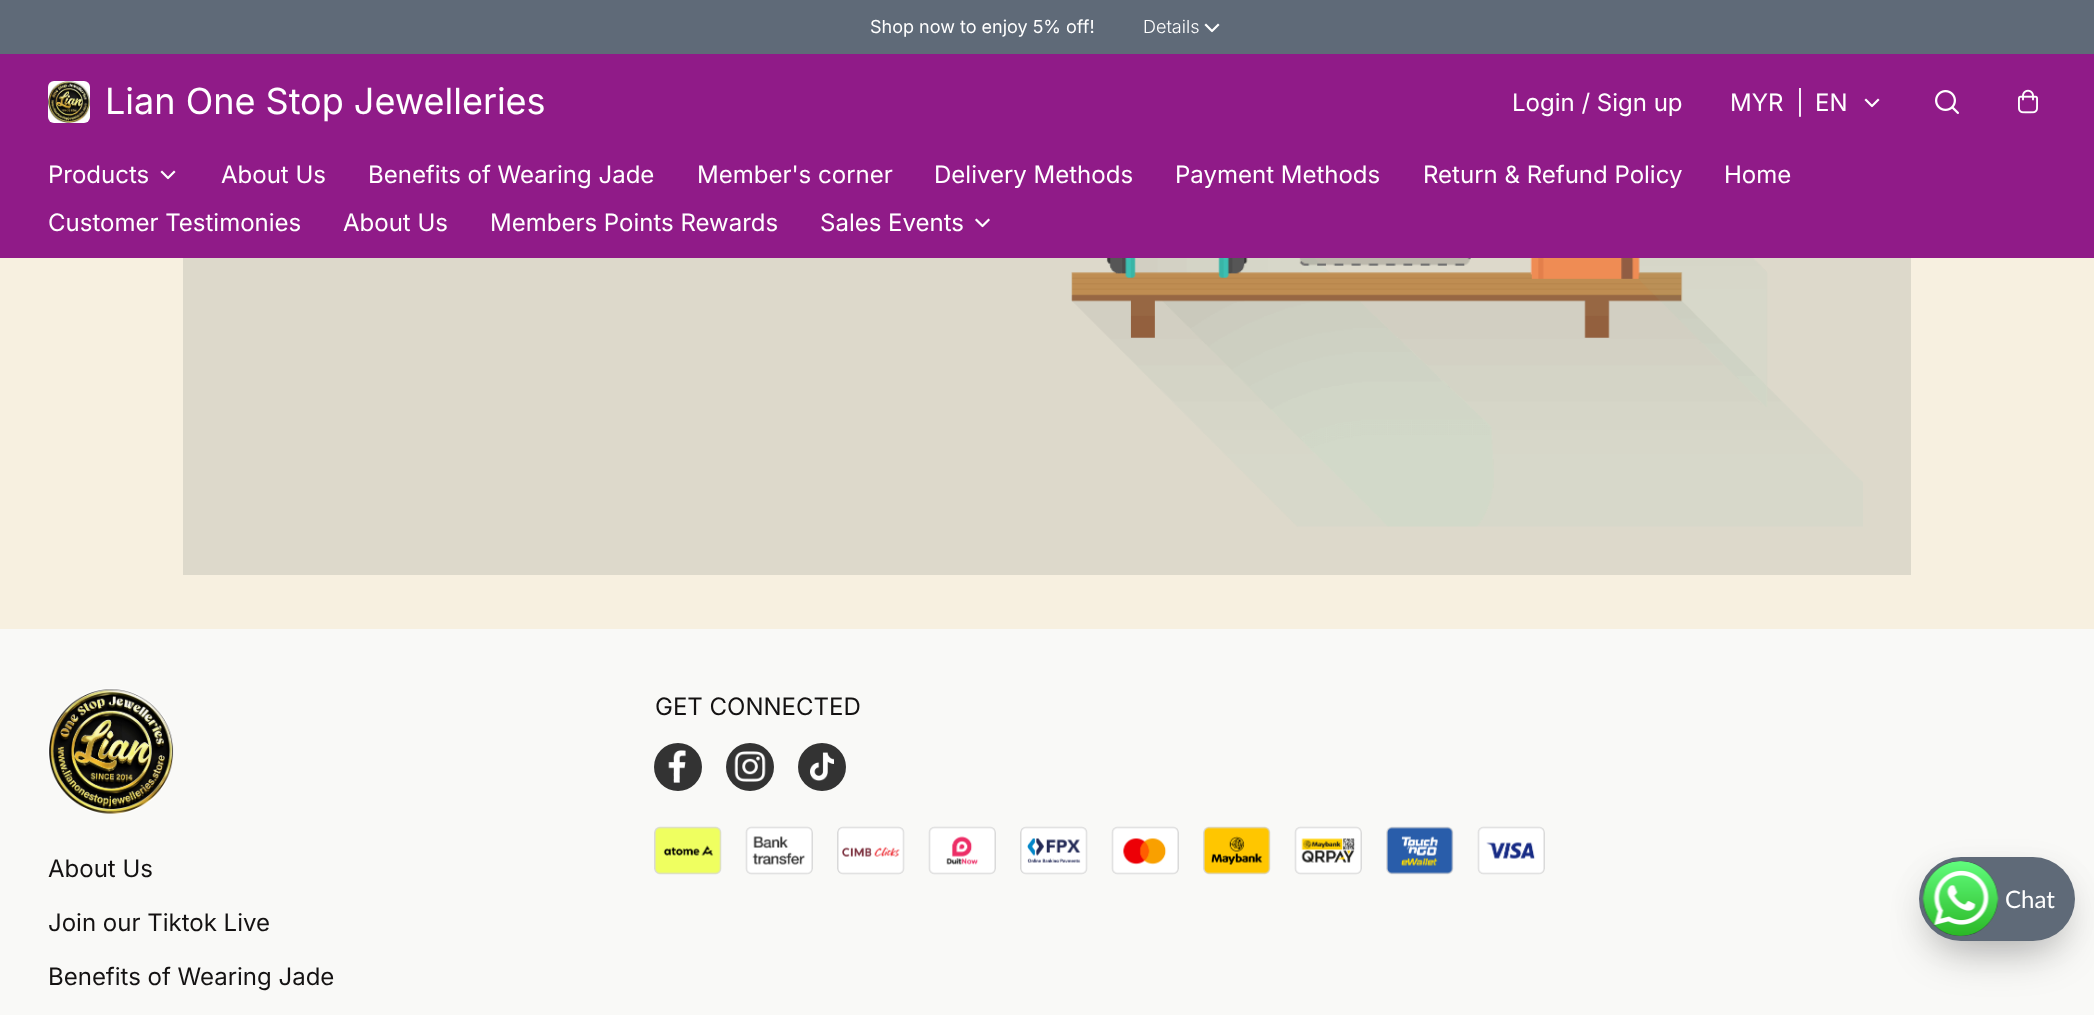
(async () => {
const canvas = document.querySelector("canvas")
canvas.width = 2094
canvas.height = 1015
const c = canvas.getContext("2d")
c.miterLimit = 4
c.fontKerning = "normal"
function T(s,x,y){c.fillText(s,x,y)}
function R(x,y,w,h){c.fillRect(x,y,w,h)}
function Q(x,y,w,h,r){c.beginPath();c.roundRect(x,y,w,h,r);c.fill()}
async function I(src,x,y,w,h){const img=new Image();img.src=src;await img.decode();c.drawImage(img,x,y,w,h)}
let path
c.fillStyle="#f7f0e0"
R(0,0,2094,1015)
c.fillStyle="#5f6a78"
R(0,0,2094,54)
c.font="18px Inter"
c.fillStyle="#fff"
T("Shop now to enjoy 5% off!",870,33)
c.font="300 18px Inter"
T("Details",1143,33)
path = new Path2D("M1206 25l6 6l6-6")
c.strokeStyle="#fff"
c.lineWidth=2.2
c.lineCap="square"
c.lineJoin="round"
c.stroke(path)
c.fillStyle="#901b88"
R(0,54,2094,204)
await I("1.png",48,81,42,42)
c.font="36px Inter"
c.fillStyle="#fff"
T("Lian One Stop Jewelleries",105,114)
c.font="24px Inter"
T("Login / Sign up",1512,111)
T("MYR",1730,111)
T("|",1796,111)
T("EN",1815,111)
path = new Path2D("M1866 100l6 6l6-6")
c.stroke(path)
await I("2.png",1935,90,24,24)
await I("3.png",2018,89,20,25)
T("Products",48,183)
path = new Path2D("M162 172l6 6l6-6")
c.stroke(path)
T("About Us",221,183)
T("Benefits of Wearing Jade",368,183)
T("Member's corner",697,183)
T("Delivery Methods",934,183)
T("Payment Methods",1175,183)
T("Return & Refund Policy",1423,183)
T("Home",1724,183)
T("Customer Testimonies",48,231)
T("About Us",343,231)
T("Members Points Rewards",490,231)
T("Sales Events",820,231)
path = new Path2D("M976.5 220l6 6l6-6")
c.stroke(path)
c.fillStyle="#ddd9cb"
R(183,258,1728,317)
await I("4.png",1071,258,792,269)
c.fillStyle="#f9f9f7"
R(0,629,2094,386)
c.fillStyle="#141212"
T("GET CONNECTED",655,715)
c.fillStyle="#333"
c.beginPath()
c.arc(678,767,24,0,7)
c.fill()
await I("5.png",668,750,18,33)
c.beginPath()
c.arc(750,767,24,0,7)
c.fill()
await I("6.png",734,751,32,31)
c.beginPath()
c.arc(822,767,24,0,7)
c.fill()
await I("7.png",810,752,24,29)
await I("8.png",654,826,68,49)
await I("9.png",745,826,68,49)
await I("10.png",837,826,68,49)
await I("11.png",928,826,68,49)
await I("12.png",1020,826,68,49)
await I("13.png",1111,826,68,49)
await I("14.png",1203,826,68,49)
await I("15.png",1294,826,68,49)
await I("16.png",1386,826,68,49)
await I("17.png",1477,826,68,49)
await I("18.png",48,688,126,126)
c.fillStyle="#141212"
T("About Us",48,877)
T("Join our Tiktok Live",48,931)
T("Benefits of Wearing Jade",48,985)
c.fillStyle="#0000004d"
c.filter="blur(22.5px)"
c.beginPath()
c.roundRect(1934,894,126,54,27)
c.fill()
c.filter="none"
c.fillStyle="#0000000d"
c.filter="blur(15px)"
c.beginPath()
c.roundRect(1919,864,156,84,42)
c.fill()
c.filter="none"
c.fillStyle="#5f6a78"
Q(1919,857,156,84,42)
await I("19.png",1922,861,77,75)
c.font="24px Lato"
c.fillStyle="#fff"
T("Chat",2005,908)
})()
